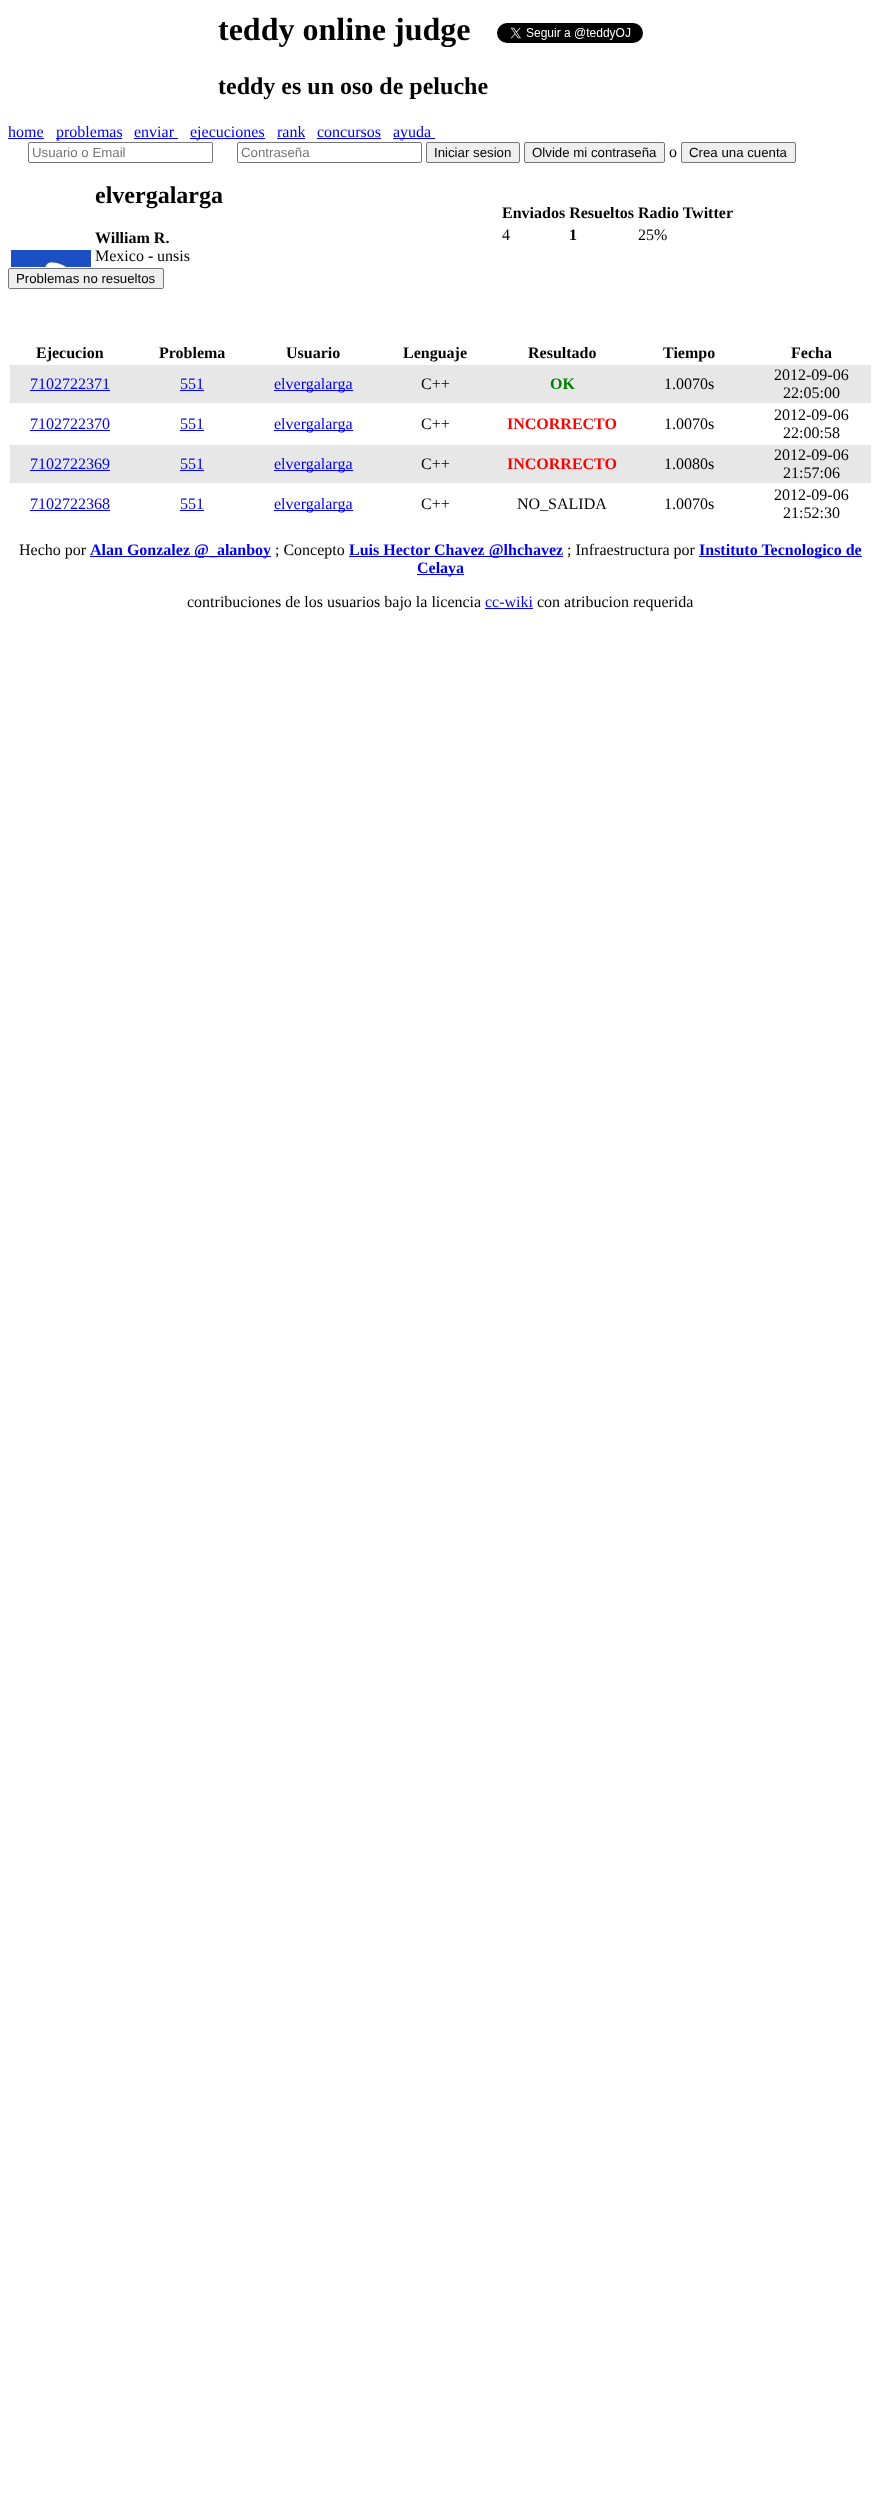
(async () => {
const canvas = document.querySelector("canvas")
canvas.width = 881
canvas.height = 2505
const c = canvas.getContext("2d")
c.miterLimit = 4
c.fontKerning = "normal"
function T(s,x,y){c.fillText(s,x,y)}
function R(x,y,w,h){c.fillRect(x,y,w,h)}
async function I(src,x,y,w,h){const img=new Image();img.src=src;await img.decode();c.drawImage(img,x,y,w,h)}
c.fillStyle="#fff"
R(0,0,881,2505)
c.font="bold 32px Liberation Serif"
c.fillStyle="#000"
T("teddy online judge",218,40)
await I("1.png",497,23,146,20)
c.font="bold 24px Liberation Serif"
T("teddy es un oso de peluche",218,94)
c.font="16px Liberation Serif"
c.fillStyle="#00e"
T("home",8,137)
R(8,138,36,1)
R(56,138,66,1)
T("problemas",56,137)
T("enviar",134,137)
R(134,138,44,1)
R(190,138,75,1)
T("ejecuciones",190,137)
T("rank",277,137)
R(277,138,28,1)
T("concursos",317,137)
R(317,138,64,1)
R(393,138,42,1)
T("ayuda",393,137)
c.beginPath()
c.roundRect(28.5,142.5,184,20,1.5)
c.strokeStyle="#767676"
c.stroke()
c.font="13.25px Liberation Sans"
c.fillStyle="#757575"
T("Usuario o Email",32,157)
c.beginPath()
c.roundRect(237.5,142.5,184,20,1.5)
c.stroke()
T("Contraseña",241,157)
c.fillStyle="#efefef"
c.beginPath()
c.roundRect(426.5,142.5,93,20,1.5)
c.fill()
c.stroke()
c.fillStyle="#000"
T("Iniciar sesion",434,157)
c.fillStyle="#efefef"
c.beginPath()
c.roundRect(524.5,142.5,140,20,1.5)
c.fill()
c.stroke()
c.fillStyle="#000"
T("Olvide mi contraseña",532,157)
c.font="16px Liberation Serif"
T("o",669,157)
c.fillStyle="#efefef"
c.beginPath()
c.roundRect(681.5,142.5,114,20,1.5)
c.fill()
c.stroke()
c.font="13.25px Liberation Sans"
c.fillStyle="#000"
T("Crea una cuenta",689,157)
c.font="bold 24px Liberation Serif"
T("elvergalarga",95,203)
c.font="bold 16px Liberation Serif"
T("William R.",95,243)
c.font="16px Liberation Serif"
T("Mexico",95,261)
c.font="bold 16px Liberation Serif"
T("-",148,261)
c.font="16px Liberation Serif"
T("unsis",157,261)
c.font="bold 16px Liberation Serif"
T("Enviados Resueltos Radio Twitter",502,218)
c.font="16px Liberation Serif"
T("4",502,240)
c.font="bold 16px Liberation Serif"
T("1",569,240)
c.font="16px Liberation Serif"
T("25%",638,240)
await I("2.png",11,250,80,17)
c.fillStyle="#efefef"
c.beginPath()
c.roundRect(8.5,268.5,155,20,1.5)
c.fill()
c.stroke()
c.font="13.25px Liberation Sans"
c.fillStyle="#000"
T("Problemas no resueltos",16,283)
c.font="bold 16px Liberation Serif"
T("Ejecucion",36,358)
T("Problema",159,358)
T("Usuario",286,358)
T("Lenguaje",403,358)
T("Resultado",528,358)
T("Tiempo",663,358)
T("Fecha",791,358)
c.fillStyle="#e7e7e7"
R(10,365,861,38)
c.font="16px Liberation Serif"
c.fillStyle="#00e"
T("7102722371",30,389)
R(30,390,80,1)
T("551",180,389)
R(180,390,24,1)
R(274,390,79,1)
T("elvergalarga",274,389)
c.fillStyle="#000"
T("C++",421,389)
c.font="bold 16px Liberation Serif"
c.fillStyle="#008000"
T("OK",550,389)
c.font="16px Liberation Serif"
c.fillStyle="#000"
T("1.0070s",664,389)
T("2012-09-06",774,380)
T("22:05:00",783,398)
c.fillStyle="#00e"
T("7102722370",30,429)
R(30,430,80,1)
T("551",180,429)
R(180,430,24,1)
R(274,430,79,1)
T("elvergalarga",274,429)
c.fillStyle="#000"
T("C++",421,429)
c.font="bold 16px Liberation Serif"
c.fillStyle="#f00"
T("INCORRECTO",507,429)
c.font="16px Liberation Serif"
c.fillStyle="#000"
T("1.0070s",664,429)
T("2012-09-06",774,420)
T("22:00:58",783,438)
c.fillStyle="#e7e7e7"
R(10,445,861,38)
c.fillStyle="#00e"
T("7102722369",30,469)
R(30,470,80,1)
T("551",180,469)
R(180,470,24,1)
R(274,470,79,1)
T("elvergalarga",274,469)
c.fillStyle="#000"
T("C++",421,469)
c.font="bold 16px Liberation Serif"
c.fillStyle="#f00"
T("INCORRECTO",507,469)
c.font="16px Liberation Serif"
c.fillStyle="#000"
T("1.0080s",664,469)
T("2012-09-06",774,460)
T("21:57:06",783,478)
c.fillStyle="#00e"
T("7102722368",30,509)
R(30,510,80,1)
T("551",180,509)
R(180,510,24,1)
R(274,510,79,1)
T("elvergalarga",274,509)
c.fillStyle="#000"
T("C++",421,509)
T("NO_SALIDA",517,509)
T("1.0070s",664,509)
T("2012-09-06",774,500)
T("21:52:30",783,518)
T("Hecho por",19,555)
c.fillStyle="#00e"
R(90,556,181,1)
c.font="bold 16px Liberation Serif"
T("Alan Gonzalez @_alanboy",90,555)
c.font="16px Liberation Serif"
c.fillStyle="#000"
T("; Concepto",275,555)
c.fillStyle="#00e"
R(349,556,214,1)
c.font="bold 16px Liberation Serif"
T("Luis Hector Chavez @lhchavez",349,555)
c.font="16px Liberation Serif"
c.fillStyle="#000"
T("; Infraestructura por",567,555)
c.fillStyle="#00e"
R(699,556,163,1)
c.font="bold 16px Liberation Serif"
T("Instituto Tecnologico de",699,555)
R(417,574,47,1)
T("Celaya",417,573)
c.font="16px Liberation Serif"
c.fillStyle="#000"
T("contribuciones de los usuarios bajo la licencia",187,607)
c.fillStyle="#00e"
T("cc-wiki",485,607)
R(485,608,48,1)
c.fillStyle="#000"
T("con atribucion requerida",537,607)
})()
